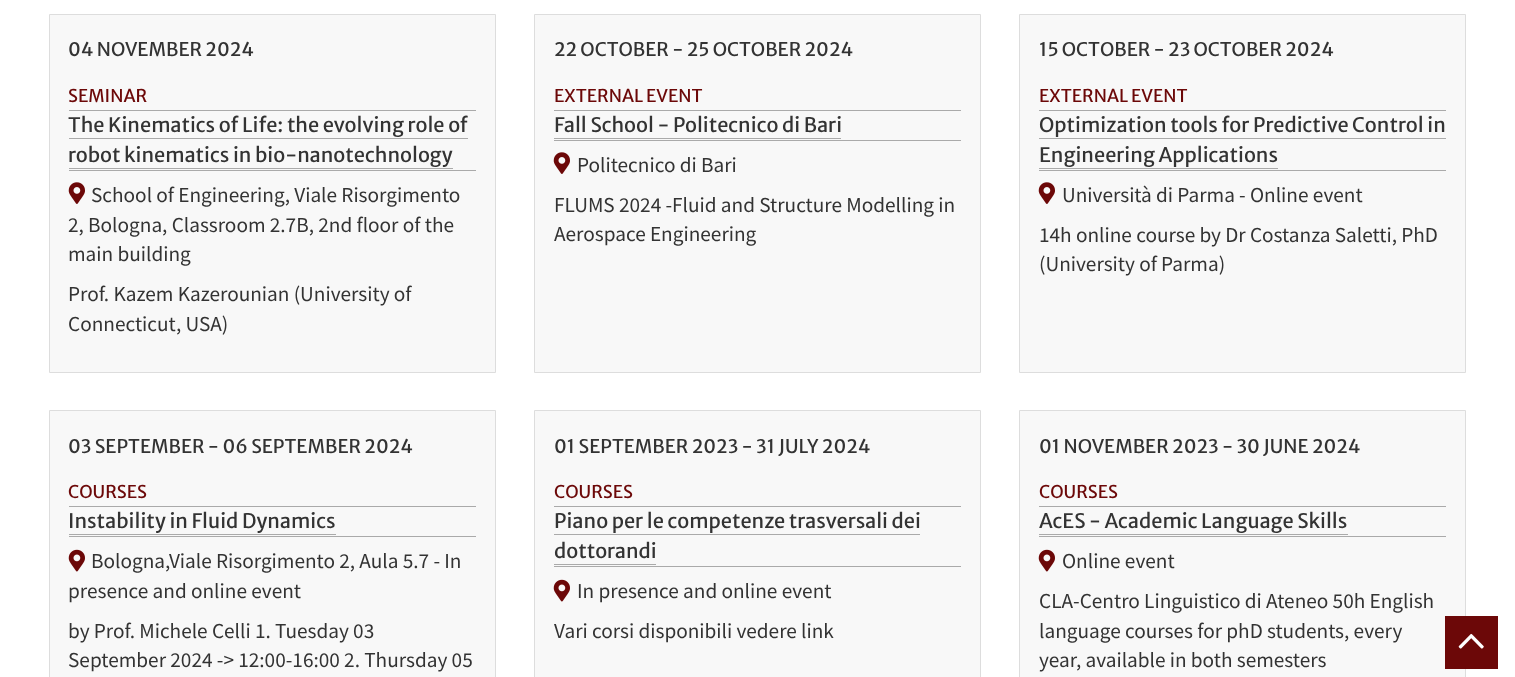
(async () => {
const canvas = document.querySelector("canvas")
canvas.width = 1515
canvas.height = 677
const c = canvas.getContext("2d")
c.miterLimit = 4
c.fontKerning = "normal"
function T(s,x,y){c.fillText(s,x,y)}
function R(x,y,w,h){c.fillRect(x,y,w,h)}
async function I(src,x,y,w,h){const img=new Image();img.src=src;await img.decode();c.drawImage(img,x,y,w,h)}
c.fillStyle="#fff"
R(0,0,1515,677)
c.fillStyle="#f8f8f8"
c.beginPath()
c.rect(49.5,14.5,446,358)
c.fill()
c.strokeStyle="#ddd"
c.stroke()
c.font="18.75px Merriweather Sans"
c.fillStyle="#333"
T("04 NOVEMBER 2024",68,56)
c.font="17.5px Merriweather Sans"
c.fillStyle="#6c0808"
T("SEMINAR",68,102)
c.font="20px Merriweather Sans"
c.fillStyle="#333"
T("The Kinematics of Life: the evolving role of",68,132)
c.fillStyle="#aaa"
R(69,110,407,1)
R(69,138,399,1)
c.fillStyle="#333"
T("robot kinematics in bio-nanotechnology",68,162)
c.fillStyle="#aaa"
R(69,168,384,1)
R(69,170,407,1)
await I("1.png",68,182,17,22)
c.font="21.25px Source Sans Pro"
c.fillStyle="#333"
T("School of Engineering, Viale Risorgimento",91,202)
T("2, Bologna, Classroom 2.7B, 2nd floor of the",68,232)
T("main building",68,261)
T("Prof. Kazem Kazerounian (University of",68,301)
T("Connecticut, USA)",68,331)
c.fillStyle="#f8f8f8"
c.beginPath()
c.rect(534.5,14.5,446,358)
c.fill()
c.stroke()
c.font="18.75px Merriweather Sans"
c.fillStyle="#333"
T("22 OCTOBER - 25 OCTOBER 2024",554,56)
c.font="17.5px Merriweather Sans"
c.fillStyle="#6c0808"
T("EXTERNAL EVENT",554,102)
c.font="20px Merriweather Sans"
c.fillStyle="#333"
T("Fall School - Politecnico di Bari",554,132)
c.fillStyle="#aaa"
R(554,110,407,1)
R(554,138,287,1)
R(554,140,407,1)
await I("1.png",553,152,17,22)
c.font="21.25px Source Sans Pro"
c.fillStyle="#333"
T("Politecnico di Bari",577,172)
T("FLUMS 2024 -Fluid and Structure Modelling in",554,212)
T("Aerospace Engineering",554,241)
c.fillStyle="#f8f8f8"
c.beginPath()
c.rect(1019.5,14.5,446,358)
c.fill()
c.stroke()
c.font="18.75px Merriweather Sans"
c.fillStyle="#333"
T("15 OCTOBER - 23 OCTOBER 2024",1039,56)
c.font="17.5px Merriweather Sans"
c.fillStyle="#6c0808"
T("EXTERNAL EVENT",1039,102)
c.font="20px Merriweather Sans"
c.fillStyle="#333"
T("Optimization tools for Predictive Control in",1039,132)
c.fillStyle="#aaa"
R(1039,110,407,1)
R(1039,138,407,1)
c.fillStyle="#333"
T("Engineering Applications",1039,162)
c.fillStyle="#aaa"
R(1039,168,239,1)
R(1039,170,407,1)
await I("1.png",1038,182,17,22)
c.font="21.25px Source Sans Pro"
c.fillStyle="#333"
T("Università di Parma - Online event",1062,202)
T("14h online course by Dr Costanza Saletti, PhD",1039,242)
T("(University of Parma)",1039,271)
c.fillStyle="#f8f8f8"
c.beginPath()
c.rect(49.5,410.5,446,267)
c.fill()
c.stroke()
c.font="18.75px Merriweather Sans"
c.fillStyle="#333"
T("03 SEPTEMBER - 06 SEPTEMBER 2024",68,453)
c.font="17.5px Merriweather Sans"
c.fillStyle="#6c0808"
T("COURSES",68,498)
c.font="20px Merriweather Sans"
c.fillStyle="#333"
T("Instability in Fluid Dynamics",68,528)
c.fillStyle="#aaa"
R(69,506,407,1)
R(69,534,267,1)
R(69,536,407,1)
await I("2.png",68,549,17,23)
c.font="21.25px Source Sans Pro"
c.fillStyle="#333"
T("Bologna,Viale Risorgimento 2, Aula 5.7 - In",91,568)
T("presence and online event",68,598)
T("by Prof. Michele Celli 1. Tuesday 03",68,638)
T("September 2024 -> 12:00-16:00 2. Thursday 05",68,667)
c.fillStyle="#f8f8f8"
c.beginPath()
c.rect(534.5,410.5,446,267)
c.fill()
c.stroke()
c.font="18.75px Merriweather Sans"
c.fillStyle="#333"
T("01 SEPTEMBER 2023 - 31 JULY 2024",554,453)
c.font="17.5px Merriweather Sans"
c.fillStyle="#6c0808"
T("COURSES",554,498)
c.font="20px Merriweather Sans"
c.fillStyle="#333"
T("Piano per le competenze trasversali dei",554,528)
c.fillStyle="#aaa"
R(554,506,407,1)
R(554,534,366,1)
c.fillStyle="#333"
T("dottorandi",554,558)
c.fillStyle="#aaa"
R(554,564,102,1)
R(554,566,407,1)
await I("2.png",553,579,17,23)
c.font="21.25px Source Sans Pro"
c.fillStyle="#333"
T("In presence and online event",577,598)
T("Vari corsi disponibili vedere link",554,638)
c.fillStyle="#f8f8f8"
c.beginPath()
c.rect(1019.5,410.5,446,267)
c.fill()
c.stroke()
c.font="18.75px Merriweather Sans"
c.fillStyle="#333"
T("01 NOVEMBER 2023 - 30 JUNE 2024",1039,453)
c.font="17.5px Merriweather Sans"
c.fillStyle="#6c0808"
T("COURSES",1039,498)
c.font="20px Merriweather Sans"
c.fillStyle="#333"
T("AcES - Academic Language Skills",1039,528)
c.fillStyle="#aaa"
R(1039,506,407,1)
R(1039,534,309,1)
R(1039,536,407,1)
await I("2.png",1038,549,17,23)
c.font="21.25px Source Sans Pro"
c.fillStyle="#333"
T("Online event",1062,568)
T("CLA-Centro Linguistico di Ateneo 50h English",1039,608)
T("language courses for phD students, every",1039,638)
T("year, available in both semesters",1039,667)
c.fillStyle="#6c0808"
R(1445,616,53,53)
await I("3.png",1458,633,26,16)
})()
